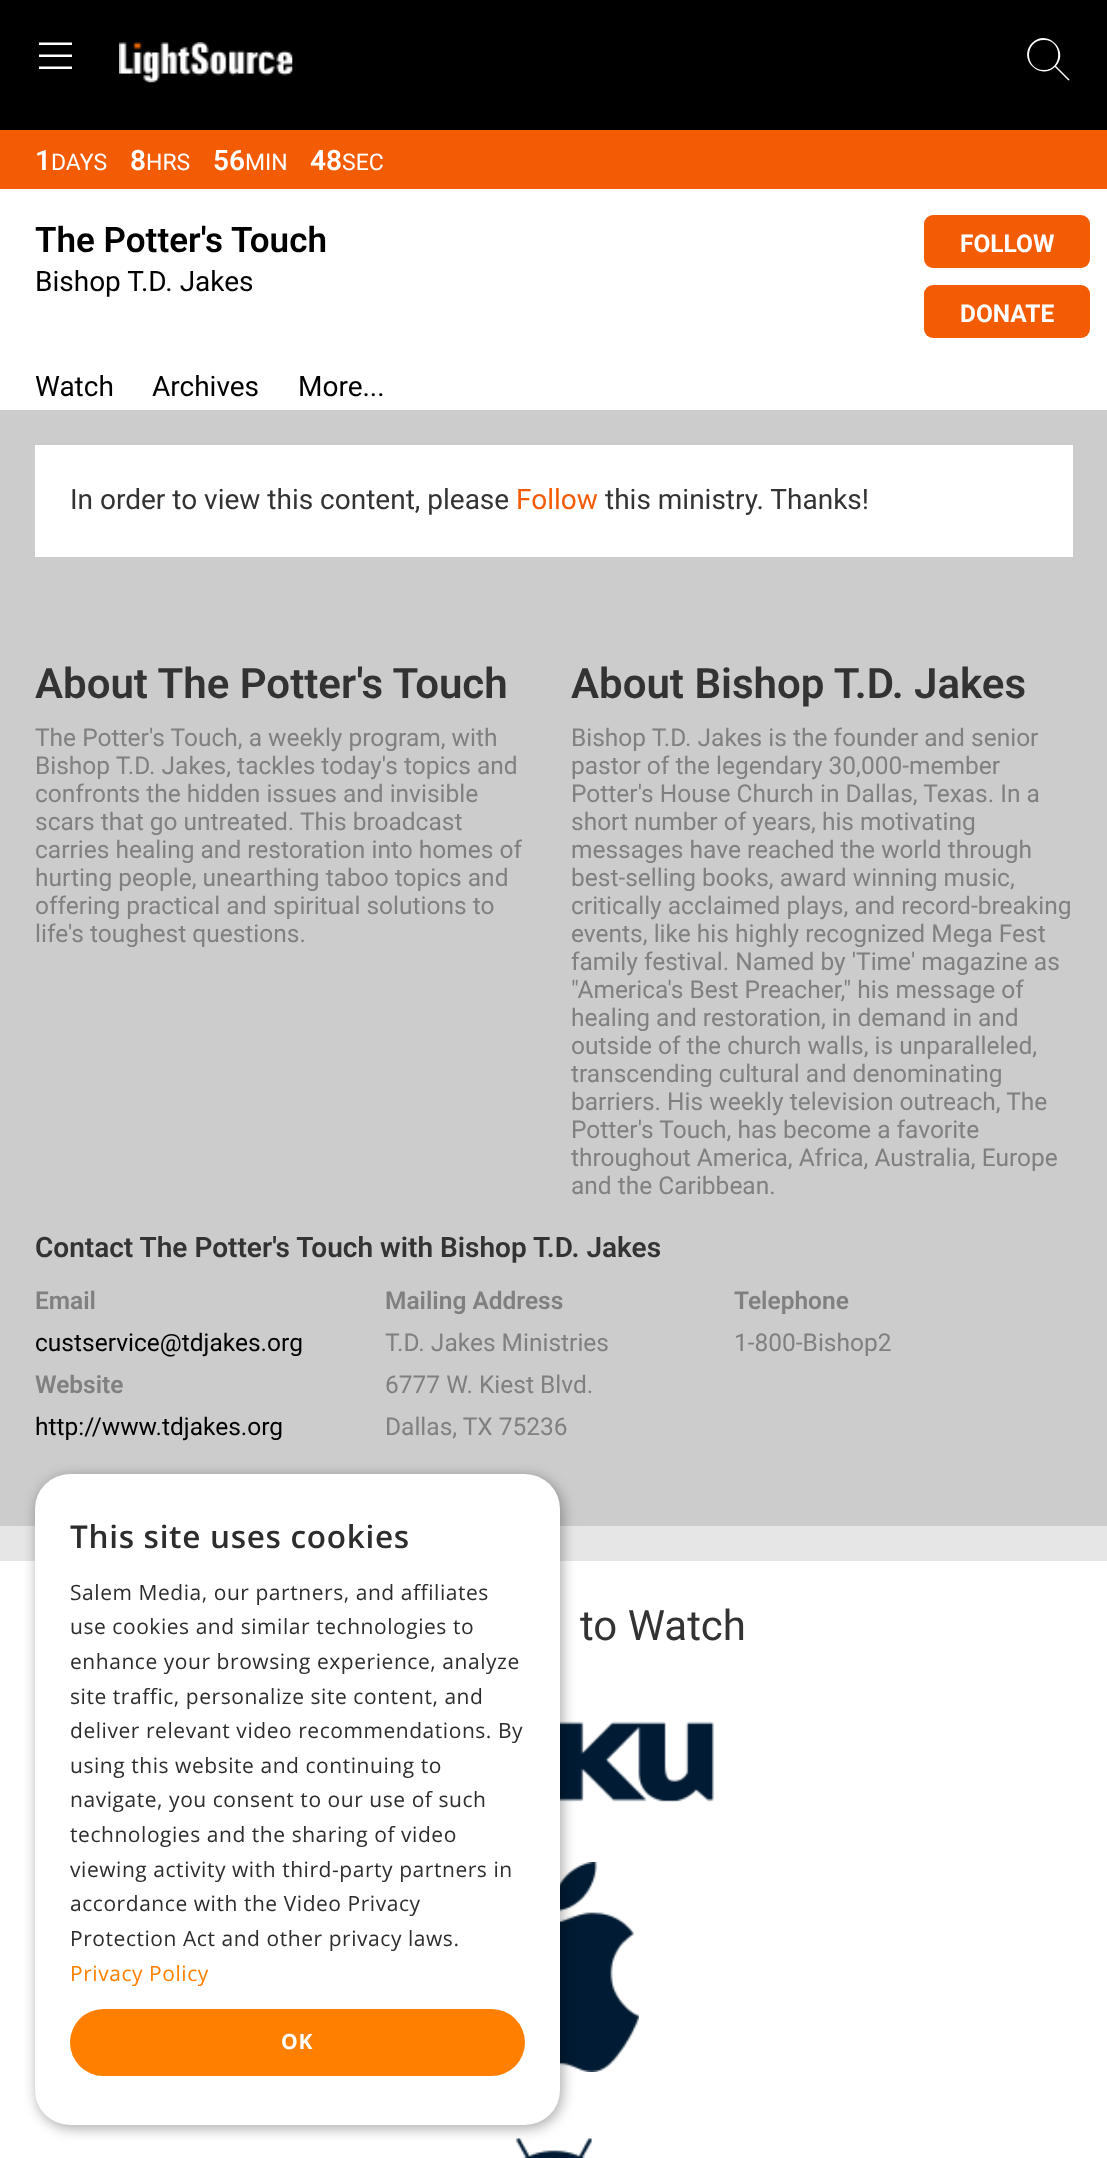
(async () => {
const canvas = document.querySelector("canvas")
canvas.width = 1107
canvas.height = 2158
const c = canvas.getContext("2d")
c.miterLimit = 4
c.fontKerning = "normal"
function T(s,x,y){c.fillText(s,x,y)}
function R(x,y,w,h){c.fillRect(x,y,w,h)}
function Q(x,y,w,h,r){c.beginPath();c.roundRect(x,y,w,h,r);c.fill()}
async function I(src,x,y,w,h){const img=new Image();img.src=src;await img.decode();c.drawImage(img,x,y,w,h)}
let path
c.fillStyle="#ccc"
R(0,0,1107,2158)
c.fillStyle="#000"
R(0,0,1107,130)
c.save()
c.beginPath()
c.rect(39,40,42,42)
c.clip()
c.fillStyle="#fff"
path = new Path2D("M72 54.5v2.5h-33.5v-2.5zm0 12v2.5h-33.5v-2.5zm0-24v2.5h-33.5v-2.5z")
c.fill(path)
c.restore()
await I("1.png",119,42,174,41)
c.fillStyle="#fff"
path = new Path2D("M1069 79l-13-13c14-15-9-38-24-23c-15 16 8 38 23 24l13 13c1 1 2 0 1-1zm-25-9c-20 0-20-30 0-30c19 0 19 30 0 30z")
c.fill(path)
R(0,189,1107,221)
c.fillStyle="#f35b04"
R(0,130,1107,59)
c.font="600 28px Roboto"
c.fillStyle="#fff"
T("1",35,170)
c.font="23px Roboto"
T("DAYS",51,170)
c.font="600 28px Roboto"
T("8",130,170)
c.font="23px Roboto"
T("HRS",146,170)
c.font="600 28px Roboto"
T("56",213,170)
c.font="23px Roboto"
T("MIN",245,170)
c.font="600 28px Roboto"
T("48",310,170)
c.font="23px Roboto"
T("SEC",342,170)
c.font="600 35px Roboto"
c.fillStyle="#000"
T("The Potter's Touch",35,252)
c.font="28px Roboto"
T("Bishop T.D. Jakes",35,291)
c.fillStyle="#f35b04"
Q(924,215,166,53,9)
c.font="bold 24.5px Roboto"
c.fillStyle="#fff"
T("FOLLOW",960,252)
c.fillStyle="#f35b04"
Q(924,285,166,53,9)
c.fillStyle="#fff"
T("DONATE",960,322)
c.font="28px Roboto"
c.fillStyle="#000"
T("Watch",35,396)
T("Archives",152,396)
T("More...",298,396)
c.fillStyle="#fff"
R(35,445,1038,112)
c.fillStyle="#333"
T("In order to view this content, please",70,509)
c.fillStyle="#f35b04"
T("Follow",516,509)
c.fillStyle="#333"
T("this ministry. Thanks!",605,509)
c.font="600 42px Roboto"
T("About The Potter's Touch",35,698)
c.font="24.5px Roboto"
c.fillStyle="#808080"
T("The Potter's Touch, a weekly program, with",35,746)
T("Bishop T.D. Jakes, tackles today's topics and",35,774)
T("confronts the hidden issues and invisible",35,802)
T("scars that go untreated. This broadcast",35,830)
T("carries healing and restoration into homes of",35,858)
T("hurting people, unearthing taboo topics and",35,886)
T("offering practical and spiritual solutions to",35,914)
T("life's toughest questions.",35,942)
c.font="600 42px Roboto"
c.fillStyle="#333"
T("About Bishop T.D. Jakes",571,698)
c.font="24.5px Roboto"
c.fillStyle="#808080"
T("Bishop T.D. Jakes is the founder and senior",571,746)
T("pastor of the legendary 30,000-member",571,774)
T("Potter's House Church in Dallas, Texas. In a",571,802)
T("short number of years, his motivating",571,830)
T("messages have reached the world through",571,858)
T("best-selling books, award winning music,",571,886)
T("critically acclaimed plays, and record-breaking",571,914)
T("events, like his highly recognized Mega Fest",571,942)
T("family festival. Named by 'Time' magazine as",571,970)
T("\"America's Best Preacher,\" his message of",571,998)
T("healing and restoration, in demand in and",571,1026)
T("outside of the church walls, is unparalleled,",571,1054)
T("transcending cultural and denominating",571,1082)
T("barriers. His weekly television outreach, The",571,1110)
T("Potter's Touch, has become a favorite",571,1138)
T("throughout America, Africa, Australia, Europe",571,1166)
T("and the Caribbean.",571,1194)
c.font="600 28px Roboto"
c.fillStyle="#333"
T("Contact The Potter's Touch with Bishop T.D. Jakes",35,1257)
c.font="600 24.5px Roboto"
c.fillStyle="#808080"
T("Email",35,1309)
c.font="24.5px Roboto"
c.fillStyle="#000"
T("custservice@tdjakes.org",35,1351)
c.font="600 24.5px Roboto"
c.fillStyle="#808080"
T("Website",35,1393)
c.font="24.5px Roboto"
c.fillStyle="#000"
T("http://www.tdjakes.org",35,1435)
c.font="600 24.5px Roboto"
c.fillStyle="#808080"
T("Mailing Address",385,1309)
c.font="24.5px Roboto"
T("T.D. Jakes Ministries",385,1351)
T("6777 W. Kiest Blvd.",385,1393)
T("Dallas, TX 75236",385,1435)
c.font="600 24.5px Roboto"
T("Telephone",734,1309)
c.font="24.5px Roboto"
T("1-800-Bishop2",734,1351)
c.fillStyle="#e6e6e6"
R(0,1526,1107,35)
c.fillStyle="#fff"
R(0,1561,1107,597)
await I("2.png",560,1721,154,81)
await I("3.png",560,1862,79,210)
await I("4.png",515,2138,77,20)
c.fillStyle="#00000059"
c.filter="blur(7px)"
c.beginPath()
c.roundRect(37,1477,525,651,35)
c.fill()
c.filter="none"
c.fillStyle="#fff"
Q(35,1474,525,651,35)
c.letterSpacing="0.7px"
c.font="600 31.5px Open Sans"
c.fillStyle="#2d2d2d"
T("This site uses cookies",70,1548)
c.letterSpacing="0.55px"
c.font="21px Open Sans"
T("Salem Media, our partners, and affiliates",70,1600)
T("use cookies and similar technologies to",70,1634)
T("enhance your browsing experience, analyze",70,1669)
T("site traffic, personalize site content, and",70,1704)
T("deliver relevant video recommendations. By",70,1738)
T("using this website and continuing to",70,1773)
T("navigate, you consent to our use of such",70,1807)
T("technologies and the sharing of video",70,1842)
T("viewing activity with third-party partners in",70,1877)
T("accordance with the Video Privacy",70,1911)
T("Protection Act and other privacy laws.",70,1946)
c.fillStyle="#ff8000"
T("Privacy Policy",70,1981)
Q(70,2009,455,67,33.5)
c.letterSpacing="0.7px"
c.font="bold 21px Open Sans"
c.fillStyle="#fff"
T("OK",281,2049)
c.letterSpacing="0px"
c.font="42px Roboto"
c.fillStyle="#333"
T("to Watch",580,1640)
})()
